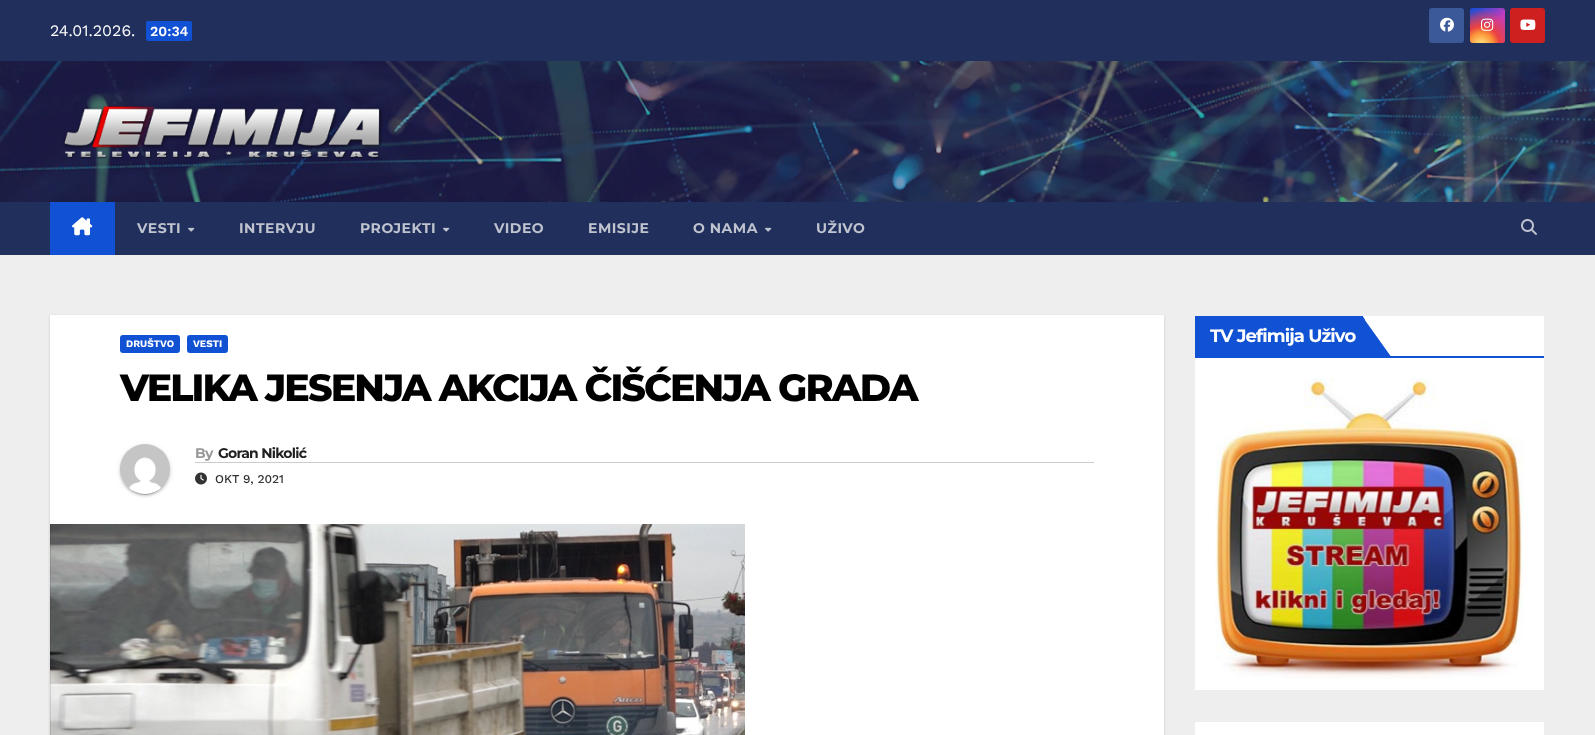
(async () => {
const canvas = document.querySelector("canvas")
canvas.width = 1595
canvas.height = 735
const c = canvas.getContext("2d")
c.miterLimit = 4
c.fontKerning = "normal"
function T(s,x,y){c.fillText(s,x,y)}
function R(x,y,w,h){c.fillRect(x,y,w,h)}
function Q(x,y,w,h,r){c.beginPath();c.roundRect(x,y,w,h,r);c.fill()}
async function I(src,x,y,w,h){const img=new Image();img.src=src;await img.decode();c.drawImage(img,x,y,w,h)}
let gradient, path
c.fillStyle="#eee"
R(0,0,1595,735)
c.fillStyle="#202f5b"
R(0,0,1595,61)
c.font="16px Work Sans"
c.fillStyle="#fff"
T("24.01.2026.",50,36)
c.fillStyle="#1151d3"
Q(146,21,46,20,2)
c.font="600 14px Work Sans"
c.fillStyle="#fff"
T("20:34",150,36)
c.fillStyle="#3b5998"
Q(1429,8,35,35,3)
await I("1.png",1440,17,14,15)
gradient = c.createLinearGradient(1470,8,1505,43)
gradient.addColorStop(.12,"#234bd7")
gradient.addColorStop(.58,"#c33cbe")
c.fillStyle = gradient
Q(1470,8,35,35,3)
gradient = c.createRadialGradient(1481,45,0,1481,45,44)
gradient.addColorStop(0,"#ffe17d")
gradient.addColorStop(.1,"#ffcd69")
gradient.addColorStop(.28,"#fa9137")
gradient.addColorStop(.42,"#eb4141")
gradient.addColorStop(.82,"#eb414100")
c.fillStyle = gradient
Q(1470,8,35,35,3)
await I("2.png",1481,18,13,13)
c.fillStyle="#cd201f"
Q(1510,8,35,35,3)
await I("3.png",1520,19,16,11)
await I("4.png",0,61,1595,141)
await I("5.png",63,106,320,53)
c.fillStyle="#202f5b"
R(0,202,1595,53)
c.fillStyle="#1151d3"
R(50,202,65,53)
await I("6.png",72,217,21,19)
c.letterSpacing="0.5px"
c.font="bold 14px Montserrat"
c.fillStyle="#bec3cf"
T("VESTI",137,233)
await I("7.png",188,227,7,5)
T("INTERVJU",239,233)
T("PROJEKTI",360,233)
await I("7.png",443,227,7,5)
T("VIDEO",494,233)
T("EMISIJE",588,233)
T("O NAMA",693,233)
await I("7.png",765,227,7,5)
T("UŽIVO",816,233)
await I("8.png",1521,219,16,16)
c.fillStyle="#00000026"
c.filter="blur(1.5px)"
c.beginPath()
c.rect(50,316,1114,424)
c.fill()
c.filter="none"
c.fillStyle="#fff"
R(50,315,1114,420)
c.fillStyle="#1151d3"
Q(120,335,60,18,3)
c.letterSpacing="0px"
c.font="bold 10px Work Sans"
c.fillStyle="#fff"
T("DRUŠTVO",126,347)
c.fillStyle="#1151d3"
Q(187,335,41,18,3)
c.fillStyle="#fff"
T("VESTI",193,347)
c.letterSpacing="-1.9px"
c.font="800 38px Montserrat"
c.fillStyle="#000"
T("VELIKA JESENJA AKCIJA ČIŠĆENJA GRADA",120,401)
c.fillStyle="#0000001f"
c.filter="blur(2.5px)"
c.beginPath()
c.roundRect(120,445,50,50,25)
c.fill()
c.filter="none"
c.fillStyle="#00000033"
c.filter="blur(0.5px)"
c.beginPath()
c.roundRect(122,449,46,46,23)
c.fill()
c.filter="none"
c.fillStyle="#00000024"
c.filter="blur(1px)"
c.beginPath()
c.roundRect(120,446,50,50,25)
c.fill()
c.filter="none"
await I("9.png",120,444,50,50)
c.fillStyle="#ccc"
R(195,462,899,1)
c.letterSpacing="-0.75px"
c.font="bold 14px Montserrat"
c.fillStyle="#999"
T("By",195,458)
c.fillStyle="#212121"
T("Goran Nikolić",218,458)
await I("10.png",195,472,12,13)
c.letterSpacing="0px"
c.font="500 12px Work Sans"
c.fillStyle="#333"
T("OKT 9, 2021",215,483)
await I("11.png",50,524,695,211)
c.fillStyle="#fff"
R(1195,316,349,374)
c.fillStyle="#1151d3"
R(1195,356,349,2)
R(1195,316,168,40)
c.letterSpacing="-0.9px"
c.font="bold 18px Montserrat"
c.fillStyle="#fff"
T("TV Jefimija Uživo",1210,342)
c.fillStyle="#1151d3"
path = new Path2D("M1362 316v42h30z")
c.fill(path)
path = new Path2D("M1364 318l-2-2v42l3-3v-35z")
c.fill(path)
await I("12.png",1215,378,309,301)
c.fillStyle="#fff"
R(1195,722,349,13)
})()
